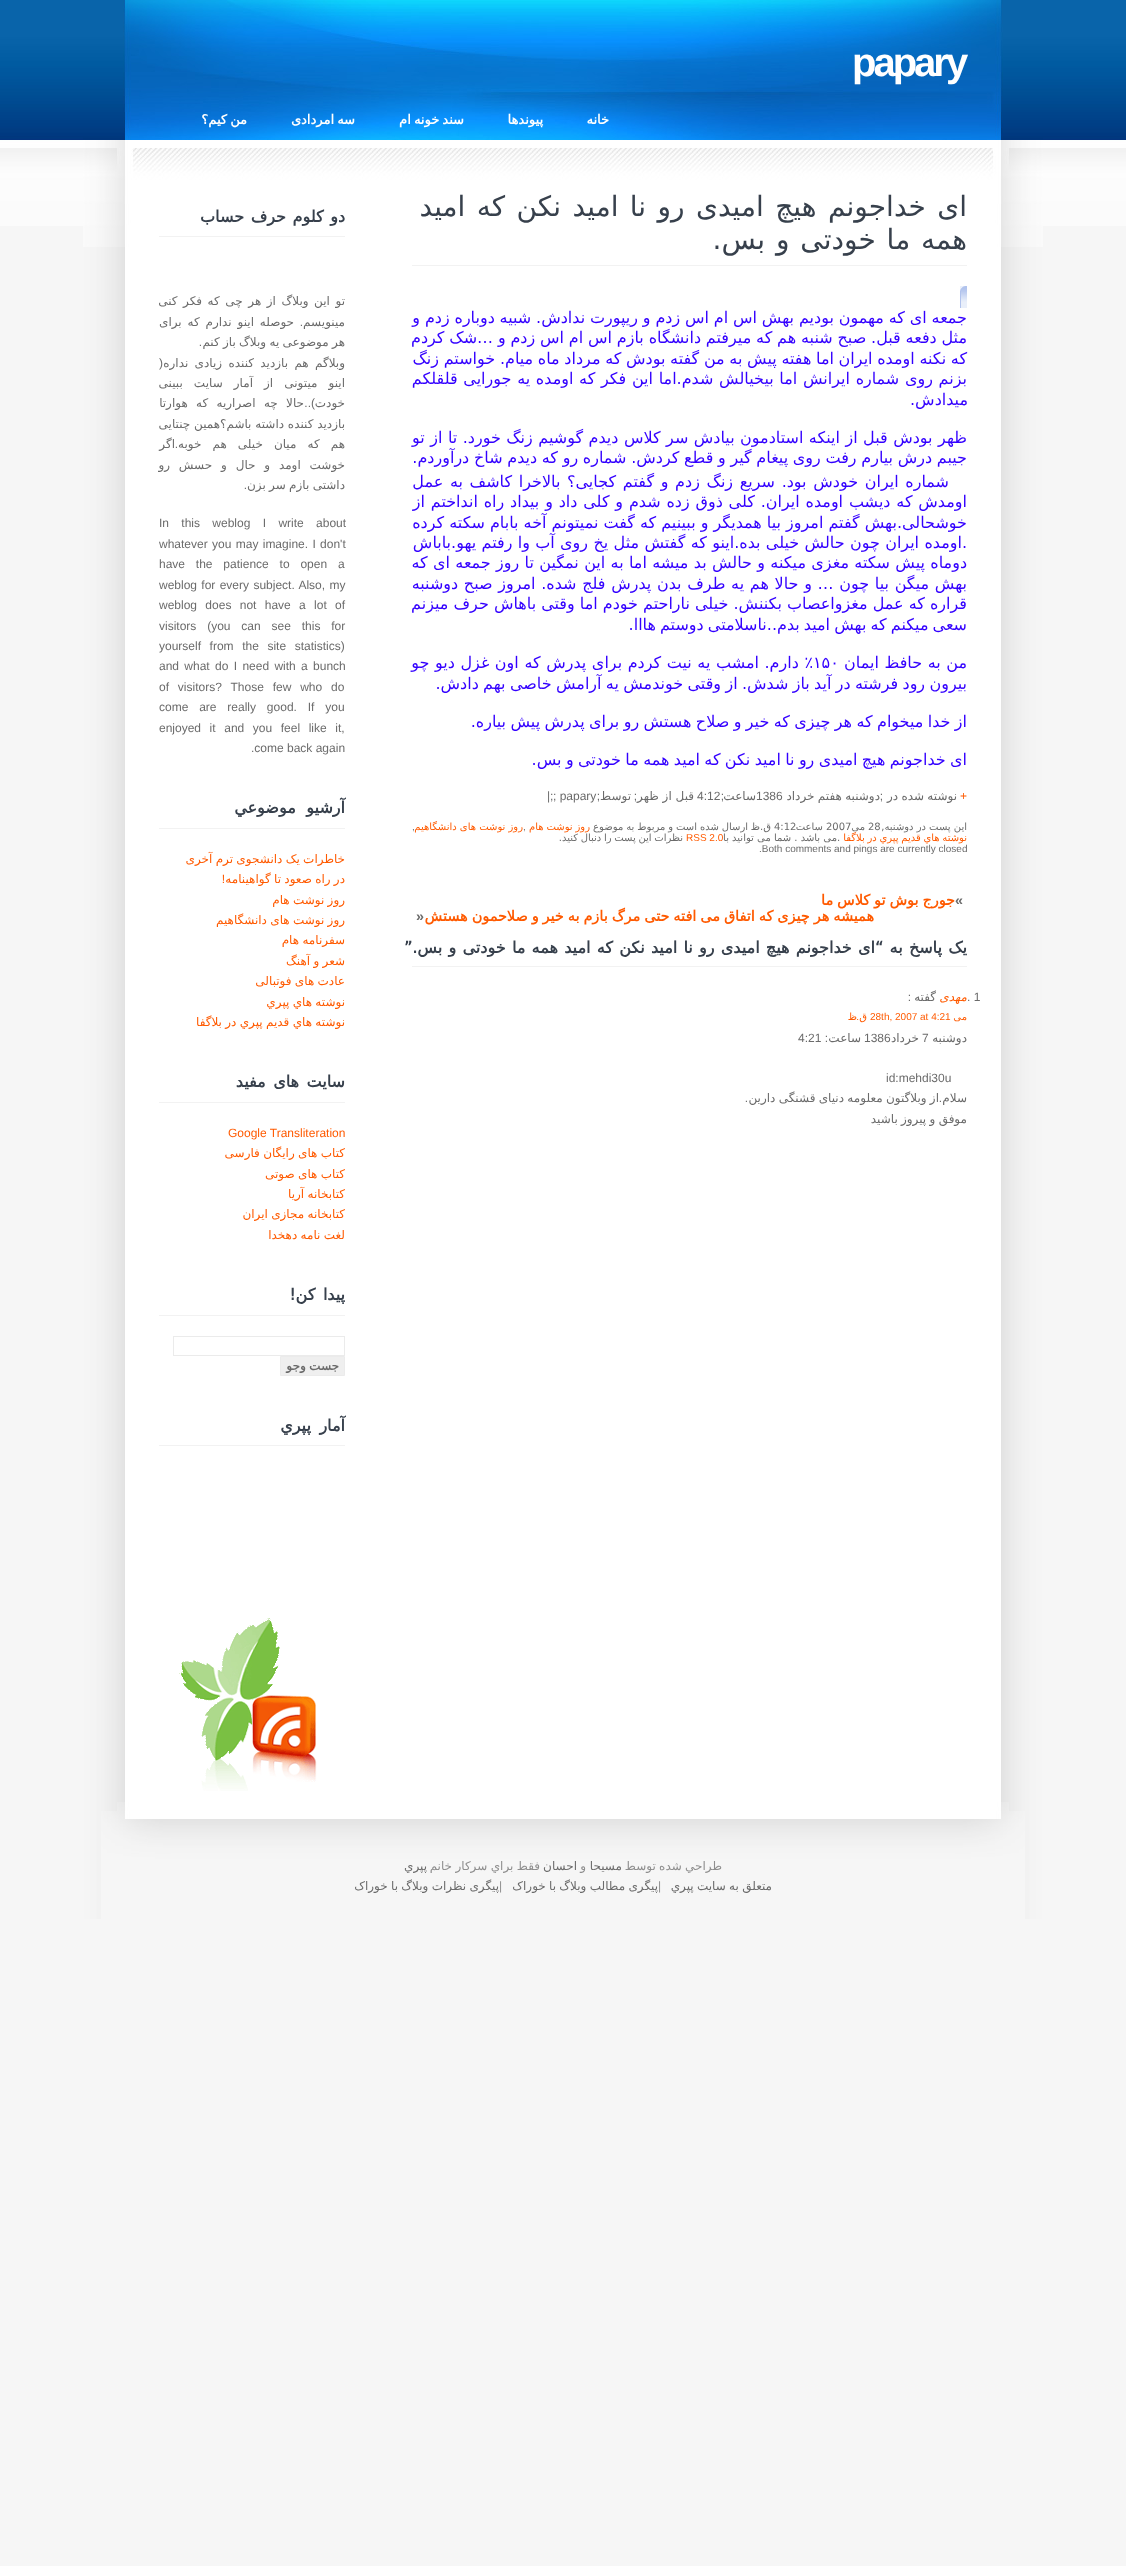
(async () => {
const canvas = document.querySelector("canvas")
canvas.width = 1126
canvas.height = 2566
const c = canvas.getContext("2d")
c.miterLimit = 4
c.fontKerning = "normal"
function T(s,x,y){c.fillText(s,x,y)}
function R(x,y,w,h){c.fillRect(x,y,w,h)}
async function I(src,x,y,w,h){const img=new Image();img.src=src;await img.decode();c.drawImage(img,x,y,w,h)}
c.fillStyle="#f6f6f6"
R(0,0,1126,2566)
await I("1.png",0,0,1126,226)
await I("2.png",83,247,960,1672)
await I("3.png",117,1802,892,9)
await I("4.png",83,0,960,140)
c.letterSpacing="-3px"
c.font="bold 40px Liberation Sans"
c.fillStyle="#fff"
T("papary",852,76)
c.letterSpacing="0px"
c.direction="rtl"
c.font="bold 13px DejaVu Sans"
T("خانه",609,124)
T("پیوندها",543,124)
c.wordSpacing="-1px"
T("سند خونه ام",464,124)
T("سه امردادی",355,124)
T("من کیم؟",247,124)
await I("5.png",83,140,960,107)
c.fillStyle="#f2f2f2"
R(412,265,555,1)
c.letterSpacing="-1px"
c.wordSpacing="3.5px"
c.font="28px DejaVu Sans"
c.fillStyle="#37404c"
T("ای خداجونم هیچ امیدی رو نا امید نکن که امید",967,216)
c.wordSpacing="3px"
T("همه ما خودتی و بس.",967,249)
await I("6.png",960,286,7,22)
c.letterSpacing="0px"
c.wordSpacing="-0.25px"
c.font="16px DejaVu Sans"
c.fillStyle="#30f"
T("جمعه ای که مهمون بودیم بهش اس ام اس زدم و ریپورت ندادش. شبیه دوباره زدم و",967,323)
T("مثل دفعه قبل. صبح شنبه هم که میرفتم دانشگاه بازم اس ام اس زدم و …شک کردم",967,343)
c.wordSpacing="-0.4px"
T("که نکنه اومده ایران اما هفته پیش به من گفته بودش که مرداد ماه میام. خواستم زنگ",967,364)
c.wordSpacing="0.6px"
T("بزنم روی شماره ایرانش اما بیخیالش شدم.اما این فکر که اومده یه جورایی قلقلکم",967,384)
c.wordSpacing="0px"
T("میدادش.",968,405)
c.wordSpacing="0.4px"
T("ظهر بودش قبل از اینکه استادمون بیادش سر کلاس دیدم گوشیم زنگ خورد. تا از تو",967,443)
c.wordSpacing="-0.4px"
T("جیبم درش بیارم رفت روی پیغام گیر و قطع کردش. شماره رو که دیدم شاخ درآوردم.",967,463)
c.wordSpacing="1.6px"
T("شماره ایران خودش بود. سریع زنگ زدم و گفتم کجایی؟ بالاخرا کاشف به عمل",949,487)
c.wordSpacing="0.75px"
T("اومدش که دیشب اومده ایران. کلی ذوق زده شدم و کلی داد و بیداد راه انداختم از",967,507)
c.wordSpacing="0px"
T("خوشحالی.بهش گفتم امروز بیا همدیگر و ببینیم که گفت نمیتونم آخه بابام سکته کرده",967,528)
c.wordSpacing="0.25px"
T(".اومده ایران چون حالش خیلی بده.اینو که گفتش مثل یخ روی آب وا رفتم یهو.باباش",967,548)
T("دوماه پیش سکته مغزی میکنه و حالش بد میشه اما به این نمگین تا روز جمعه ای که",967,568)
c.wordSpacing="0.6px"
T("بهش میگن بیا چون … و حالا هم یه طرف بدن پدرش فلج شده. امروز صبح دوشنبه",967,589)
c.wordSpacing="0px"
T("قراره که عمل مغزواعصاب بکننش. خیلی ناراحتم خودم اما وقتی باهاش حرف میزنم",967,609)
c.wordSpacing="-1px"
T("سعی میکنم که بهش امید بدم..ناسلامتی دوستم هااا.",967,630)
c.wordSpacing="0.5px"
T("من به حافظ ایمان",967,668)
c.wordSpacing="0px"
c.direction="ltr"
T("۱۵۰",813,668)
c.wordSpacing="0.5px"
c.direction="rtl"
T("٪ دارم. امشب یه نیت کردم برای پدرش که اون غزل دیو چو",813,668)
c.wordSpacing="-0.75px"
T("بیرون رود فرشته در آید باز شدش. از وقتی خوندمش یه آرامش خاصی بهم دادش.",967,689)
c.wordSpacing="-0.7px"
T("از خدا میخوام که هر چیزی که خیر و صلاح هستش رو برای پدرش پیش بیاره.",967,727)
c.wordSpacing="-0.75px"
T("ای خداجونم هیچ امیدی رو نا امید نکن که امید همه ما خودتی و بس.",967,765)
c.wordSpacing="-0.5px"
c.font="12px DejaVu Sans"
c.fillStyle="#6b6b6b"
T("دوشنبه هفتم خرداد",880,800)
c.wordSpacing="0px"
c.direction="ltr"
c.font="12px Liberation Sans"
T("1386",756,800)
c.direction="rtl"
c.font="12px DejaVu Sans"
T("ساعت",756,800)
c.direction="ltr"
c.font="12px Liberation Sans"
T("4:12",697,800)
c.direction="rtl"
T(";",637,800)
c.font="12px DejaVu Sans"
T("قبل از ظهر",694,800)
T("توسط",631,800)
c.font="12px Liberation Sans"
T(";",600,800)
c.direction="ltr"
T("; papary",553,800)
T("|;",547,800)
c.fillStyle="#ff5a00"
T("+",960,800)
c.wordSpacing="-0.5px"
c.direction="rtl"
c.font="12px DejaVu Sans"
c.fillStyle="#6b6b6b"
T("نوشته شده در",957,800)
c.wordSpacing="0px"
c.font="12px Liberation Sans"
T(";",883,800)
T(";",724,800)
c.font="10px DejaVu Sans"
T("این پست",967,830)
T("در دوشنبه,",926,830)
c.direction="ltr"
T("28",868,830)
c.direction="rtl"
T("می",865,830)
c.direction="ltr"
T("2007",826,830)
c.direction="rtl"
T("ساعت",823,830)
c.direction="ltr"
T("4:12",774,830)
c.direction="rtl"
T("ق.ظ",771,830)
c.wordSpacing="-0.25px"
T("ارسال شده است و مربوط به موضوع",748,830)
c.fillStyle="#ff5a00"
T("روز نوشت هام",590,830)
c.wordSpacing="0px"
c.direction="ltr"
c.font="10px Liberation Sans"
c.fillStyle="#6b6b6b"
T(",",523,830)
c.direction="rtl"
c.font="10px DejaVu Sans"
c.fillStyle="#ff5a00"
T("روز نوشت های دانشگاهیم",523,830)
c.direction="ltr"
c.font="10px Liberation Sans"
c.fillStyle="#6b6b6b"
T(",",412,830)
c.wordSpacing="-0.5px"
c.direction="rtl"
c.font="10px DejaVu Sans"
c.fillStyle="#ff5a00"
T("نوشته هاي قديم پپري در بلاگفا",967,841)
c.wordSpacing="0px"
c.direction="ltr"
c.fillStyle="#6b6b6b"
T(".",837,841)
c.direction="rtl"
T("می باشد . شما می توانید با",837,841)
c.direction="ltr"
c.font="10px Liberation Sans"
c.fillStyle="#ff5a00"
T("RSS 2.0",686,841)
c.wordSpacing="-0.5px"
c.direction="rtl"
c.font="10px DejaVu Sans"
c.fillStyle="#6b6b6b"
T("نظرات این پست را دنبال کنید.",683,841)
c.wordSpacing="0px"
c.direction="ltr"
c.font="10px Liberation Sans"
T(".Both comments and pings are currently closed",759,852)
c.font="bold 14.4px Liberation Sans"
T("«",955,905)
c.wordSpacing="-0.6px"
c.direction="rtl"
c.font="bold 14.4px DejaVu Sans"
c.fillStyle="#ff5a00"
T("جورج بوش تو کلاس ما",955,905)
T("همیشه هر چیزی که اتفاق می افته حتی مرگ بازم به خیر و صلاحمون هستش",874,921)
c.wordSpacing="0px"
c.direction="ltr"
c.font="bold 14.4px Liberation Sans"
c.fillStyle="#6b6b6b"
T("»",416,921)
c.fillStyle="#f2f2f2"
R(412,966,555,1)
c.letterSpacing="-0.55px"
c.wordSpacing="1.75px"
c.direction="rtl"
c.font="bold 16px DejaVu Sans"
c.fillStyle="#37404c"
T("یک پاسخ به “ای خداجونم هیچ امیدی رو نا امید نکن که امید همه ما خودتی و بس.”",967,953)
c.letterSpacing="0px"
c.wordSpacing="0px"
c.direction="ltr"
c.font="12px Liberation Sans"
c.fillStyle="#6b6b6b"
T(". 1",967,1001)
c.direction="rtl"
c.font="italic 12px DejaVu Sans"
c.fillStyle="#ff5a00"
T("مهدی",967,1001)
c.font="12px DejaVu Sans"
c.fillStyle="#6b6b6b"
T("گفته",936,1001)
c.font="12px Liberation Sans"
T(":",911,1001)
c.font="10px DejaVu Sans"
c.fillStyle="#ff5a00"
T("می",967,1020)
c.direction="ltr"
c.font="10px Liberation Sans"
T("28th, 2007 at 4:21",870,1020)
c.direction="rtl"
c.font="10px DejaVu Sans"
T("ق",867,1020)
c.font="10px Liberation Sans"
T(".",859,1020)
c.font="10px DejaVu Sans"
T("ظ",857,1020)
c.font="12px DejaVu Sans"
c.fillStyle="#6b6b6b"
T("دوشنبه",967,1042)
c.direction="ltr"
c.font="12px Liberation Sans"
T("7",922,1042)
c.direction="rtl"
c.font="12px DejaVu Sans"
T("خرداد",919,1042)
c.direction="ltr"
c.font="12px Liberation Sans"
T("1386",864,1042)
c.direction="rtl"
c.font="12px DejaVu Sans"
T("ساعت",861,1042)
c.font="12px Liberation Sans"
T(":",828,1042)
c.direction="ltr"
T("4:21",798,1042)
T("id:mehdi30u",886,1082)
c.direction="rtl"
c.font="12px DejaVu Sans"
T("سلام",967,1102)
c.wordSpacing="-0.5px"
T("از وبلاگتون معلومه دنیای قشنگی دارین",939,1102)
c.wordSpacing="0px"
c.font="12px Liberation Sans"
T(".",748,1102)
T(".",942,1102)
c.wordSpacing="-0.5px"
c.font="12px DejaVu Sans"
T("موفق و پیروز باشید",967,1123)
c.fillStyle="#f2f2f2"
R(159,236,186,1)
c.letterSpacing="-0.55px"
c.wordSpacing="2px"
c.font="bold 16px DejaVu Sans"
c.fillStyle="#37404c"
T("دو کلوم حرف حساب",345,222)
c.letterSpacing="0px"
c.wordSpacing="1.75px"
c.font="12px DejaVu Sans"
c.fillStyle="#6b6b6b"
T("تو این وبلاگ از هر چی که فکر کنی",345,305)
c.wordSpacing="0px"
T("مینویسم",345,326)
c.font="12px Liberation Sans"
T(".",303,326)
c.wordSpacing="2px"
c.font="12px DejaVu Sans"
T("حوصله اینو ندارم که برای",294,326)
c.wordSpacing="-0.5px"
T("هر موضوعی یه وبلاگ باز کنم",345,346)
c.wordSpacing="0px"
c.font="12px Liberation Sans"
T(".",202,346)
c.wordSpacing="2.5px"
c.font="12px DejaVu Sans"
T("وبلاگم هم بازدید کننده زیادی نداره",345,367)
c.wordSpacing="0px"
c.font="12px Liberation Sans"
T("(",163,367)
c.wordSpacing="7.25px"
c.font="12px DejaVu Sans"
T("اینو میتونی از آمار سایت ببینی",345,387)
c.wordSpacing="0px"
T("خودت",345,407)
c.font="12px Liberation Sans"
T(")..",315,407)
c.wordSpacing="4.5px"
c.font="12px DejaVu Sans"
T("حالا چه اصراریه که هوارتا",304,407)
c.wordSpacing="0px"
T("بازدید کننده داشته باشم؟همین چنتایی",345,428)
c.wordSpacing="7.25px"
T("هم که میان خیلی هم خوبه",345,448)
c.wordSpacing="0px"
c.font="12px Liberation Sans"
T(".",178,448)
c.font="12px DejaVu Sans"
T("اگر",175,448)
c.wordSpacing="5px"
T("خوشت اومد و حال و حسش رو",345,469)
c.wordSpacing="-0.5px"
T("داشتی بازم سر بزن",345,489)
c.wordSpacing="0px"
c.font="12px Liberation Sans"
T(".",247,489)
c.wordSpacing="9px"
c.direction="ltr"
T("In this weblog I write about",159,527)
c.wordSpacing="1px"
T("whatever you may imagine. I don't",159,548)
c.wordSpacing="7.5px"
T("have the patience to open a",159,568)
c.wordSpacing="1px"
T("weblog for every subject. Also, my",159,589)
c.wordSpacing="5px"
T("weblog does not have a lot of",159,609)
c.wordSpacing="7.5px"
T("visitors (you can see this for",159,630)
c.wordSpacing="5.25px"
T("yourself from the site statistics)",159,650)
c.wordSpacing="2px"
T("and what do I need with a bunch",159,670)
c.wordSpacing="5.5px"
T("of visitors? Those few who do",159,691)
c.wordSpacing="7.5px"
T("come are really good. If you",159,711)
c.wordSpacing="5.25px"
T("enjoyed it and you feel like it,",159,732)
c.wordSpacing="0px"
T(".come back again",251,752)
c.fillStyle="#f2f2f2"
R(159,828,186,1)
c.letterSpacing="-0.55px"
c.wordSpacing="6px"
c.direction="rtl"
c.font="bold 16px DejaVu Sans"
c.fillStyle="#37404c"
T("آرشيو موضوعي",345,813)
c.letterSpacing="0px"
c.wordSpacing="-0.5px"
c.font="12px DejaVu Sans"
c.fillStyle="#ff5a00"
T("خاطرات یک دانشجوی ترم آخری",345,863)
T("در راه صعود تا گواهینامه",345,883)
c.wordSpacing="0px"
c.font="12px Liberation Sans"
T("!",225,883)
c.wordSpacing="-0.5px"
c.font="12px DejaVu Sans"
T("روز نوشت هام",345,904)
T("روز نوشت های دانشگاهیم",345,924)
T("سفرنامه هام",345,944)
T("شعر و آهنگ",345,965)
T("عادت های فوتبالی",345,985)
T("نوشته هاي پپري",345,1006)
T("نوشته هاي قديم پپري در بلاگفا",345,1026)
c.fillStyle="#f2f2f2"
R(159,1102,186,1)
c.letterSpacing="-0.55px"
c.wordSpacing="3px"
c.font="bold 16px DejaVu Sans"
c.fillStyle="#37404c"
T("سایت های مفید",345,1087)
c.letterSpacing="0px"
c.wordSpacing="0px"
c.direction="ltr"
c.font="12px Liberation Sans"
c.fillStyle="#ff5a00"
T("Google Transliteration",228,1137)
c.wordSpacing="-0.5px"
c.direction="rtl"
c.font="12px DejaVu Sans"
T("کتاب های رایگان فارسی",345,1157)
T("کتاب های صوتی",345,1178)
T("کتابخانه آریا",345,1198)
T("کتابخانه مجازی ایران",345,1218)
T("لغت نامه دهخدا",345,1239)
c.fillStyle="#f2f2f2"
R(159,1315,186,1)
c.letterSpacing="-0.55px"
c.wordSpacing="3px"
c.font="bold 16px DejaVu Sans"
c.fillStyle="#37404c"
T("پیدا کن!",345,1300)
c.strokeStyle="#ebebeb"
c.strokeRect(173.5,1336.5,171,19)
c.fillStyle="#efefef"
c.beginPath()
c.rect(280.5,1356.5,64,19)
c.fill()
c.stroke()
c.letterSpacing="0px"
c.wordSpacing="-0.5px"
c.font="bold 12px DejaVu Sans"
c.fillStyle="#6b6b6b"
T("جست وجو",339,1370)
c.fillStyle="#f2f2f2"
R(159,1445,186,1)
c.letterSpacing="-0.55px"
c.wordSpacing="4px"
c.font="bold 16px DejaVu Sans"
c.fillStyle="#37404c"
T("آمار پپري",345,1431)
await I("7.png",179,1618,138,173)
await I("8.png",101,1811,924,108)
c.letterSpacing="0px"
c.wordSpacing="-0.5px"
c.font="12px DejaVu Sans"
c.fillStyle="#8e8e8e"
T("طراحي شده توسط",722,1870)
c.wordSpacing="0px"
c.fillStyle="#6b6b6b"
T("مسيحا",622,1870)
c.fillStyle="#8e8e8e"
T("و",586,1870)
c.fillStyle="#6b6b6b"
T("احسان",577,1870)
c.wordSpacing="-0.4px"
c.fillStyle="#8e8e8e"
T("فقط براي سركار خانم",540,1870)
c.wordSpacing="0px"
c.fillStyle="#6b6b6b"
T("پپري",427,1870)
c.wordSpacing="-0.5px"
T("متعلق به سايت پپري",772,1890)
c.wordSpacing="0px"
c.direction="ltr"
c.font="12px Liberation Sans"
c.fillStyle="#8e8e8e"
T("|",658,1890)
c.wordSpacing="-0.5px"
c.direction="rtl"
c.font="12px DejaVu Sans"
c.fillStyle="#6b6b6b"
T("پیگری مطالب وبلاگ با خوراک",658,1890)
c.wordSpacing="0px"
c.direction="ltr"
c.font="12px Liberation Sans"
c.fillStyle="#8e8e8e"
T("|",499,1890)
c.wordSpacing="-0.5px"
c.direction="rtl"
c.font="12px DejaVu Sans"
c.fillStyle="#6b6b6b"
T("پیگری نظرات وبلاگ با خوراک",499,1890)
})()
